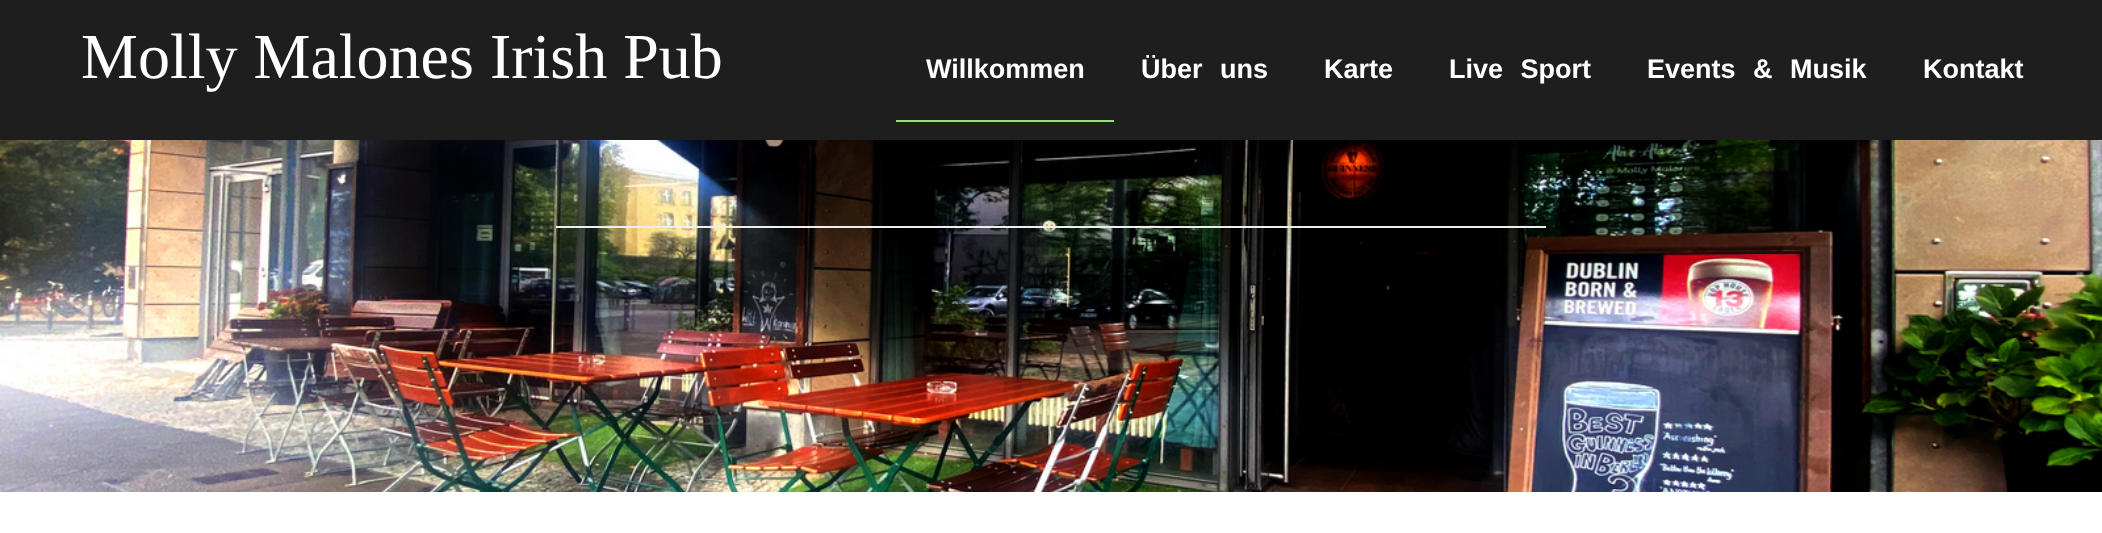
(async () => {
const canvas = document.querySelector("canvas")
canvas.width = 2102
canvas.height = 533
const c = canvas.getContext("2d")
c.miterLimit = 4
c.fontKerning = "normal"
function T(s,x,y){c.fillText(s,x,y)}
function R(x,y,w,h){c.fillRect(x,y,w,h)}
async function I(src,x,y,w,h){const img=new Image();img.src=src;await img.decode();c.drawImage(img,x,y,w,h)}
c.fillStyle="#fff"
R(0,0,2102,533)
c.fillStyle="#1e1e1e"
R(0,0,2102,140)
c.font="64px Liberation Serif"
c.fillStyle="#fff"
T("Molly Malones Irish Pub",81,78)
c.fillStyle="#96e16b"
R(896,120,218,2)
c.font="bold 27px Liberation Sans"
c.fillStyle="#fff"
T("Willkommen",926,78)
c.wordSpacing="10px"
T("Über uns",1141,78)
c.wordSpacing="0px"
T("Karte",1324,78)
c.wordSpacing="10px"
T("Live Sport",1449,78)
T("Events & Musik",1647,78)
c.wordSpacing="0px"
T("Kontakt",1923,78)
await I("1.png",0,140,2102,352)
c.fillStyle="#eee"
R(556,226,990,2)
})()
